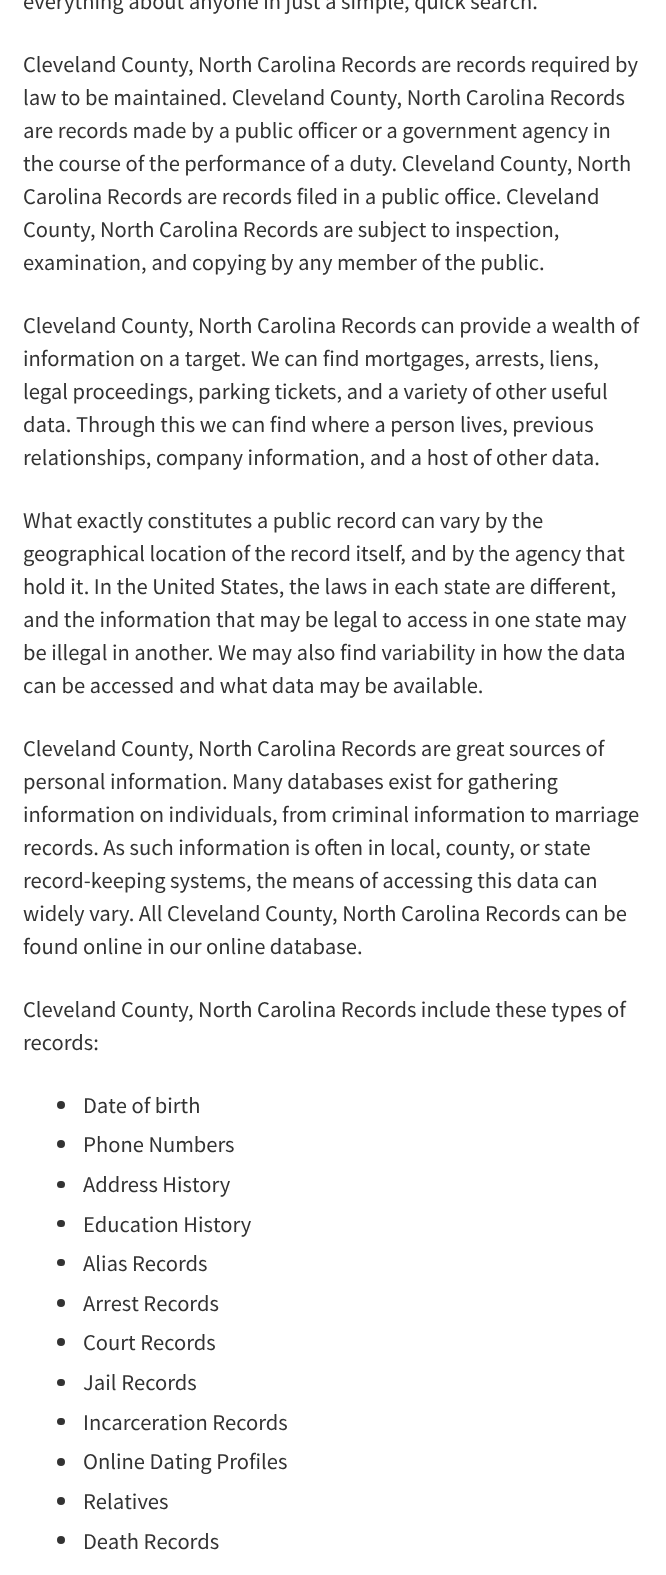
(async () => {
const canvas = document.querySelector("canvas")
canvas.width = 666
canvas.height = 1575
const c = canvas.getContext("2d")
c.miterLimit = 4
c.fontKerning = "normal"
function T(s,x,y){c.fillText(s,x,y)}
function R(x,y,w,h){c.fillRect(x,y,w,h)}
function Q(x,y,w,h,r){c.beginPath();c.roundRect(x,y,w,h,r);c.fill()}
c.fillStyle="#fff"
R(0,0,666,1575)
c.font="22.5px Source Sans Pro"
c.fillStyle="#333"
T("everything about anyone in just a simple, quick search.",23,9)
T("Cleveland County, North Carolina Records are records required by",23,72)
T("law to be maintained. Cleveland County, North Carolina Records",23,105)
T("are records made by a public officer or a government agency in",23,138)
T("the course of the performance of a duty. Cleveland County, North",23,171)
T("Carolina Records are records filed in a public office. Cleveland",23,204)
T("County, North Carolina Records are subject to inspection,",23,237)
T("examination, and copying by any member of the public.",23,270)
T("Cleveland County, North Carolina Records can provide a wealth of",23,333)
T("information on a target. We can find mortgages, arrests, liens,",23,366)
T("legal proceedings, parking tickets, and a variety of other useful",23,399)
T("data. Through this we can find where a person lives, previous",23,432)
T("relationships, company information, and a host of other data.",23,465)
T("What exactly constitutes a public record can vary by the",23,528)
T("geographical location of the record itself, and by the agency that",23,561)
T("hold it. In the United States, the laws in each state are different,",23,594)
T("and the information that may be legal to access in one state may",23,627)
T("be illegal in another. We may also find variability in how the data",23,660)
T("can be accessed and what data may be available.",23,693)
T("Cleveland County, North Carolina Records are great sources of",23,756)
T("personal information. Many databases exist for gathering",23,789)
T("information on individuals, from criminal information to marriage",23,822)
T("records. As such information is often in local, county, or state",23,855)
T("record-keeping systems, the means of accessing this data can",23,888)
T("widely vary. All Cleveland County, North Carolina Records can be",23,921)
T("found online in our online database.",23,954)
T("Cleveland County, North Carolina Records include these types of",23,1017)
T("records:",23,1050)
c.beginPath()
c.arc(61,1105,4,0,7)
c.fill()
T("Date of birth",83,1113)
c.beginPath()
c.arc(61,1144,4,0,7)
c.fill()
T("Phone Numbers",83,1152)
Q(57,1181,8,7,3.5)
T("Address History",83,1192)
Q(57,1220,8,7,3.5)
T("Education History",83,1232)
Q(57,1259,8,7,3.5)
T("Alias Records",83,1271)
c.beginPath()
c.arc(61,1303,4,0,7)
c.fill()
T("Arrest Records",83,1311)
c.beginPath()
c.arc(61,1342,4,0,7)
c.fill()
T("Court Records",83,1350)
Q(57,1379,8,7,3.5)
T("Jail Records",83,1390)
Q(57,1418,8,7,3.5)
T("Incarceration Records",83,1430)
c.beginPath()
c.arc(61,1462,4,0,7)
c.fill()
T("Online Dating Profiles",83,1469)
c.beginPath()
c.arc(61,1501,4,0,7)
c.fill()
T("Relatives",83,1509)
c.beginPath()
c.arc(61,1540,4,0,7)
c.fill()
T("Death Records",83,1549)
})()
